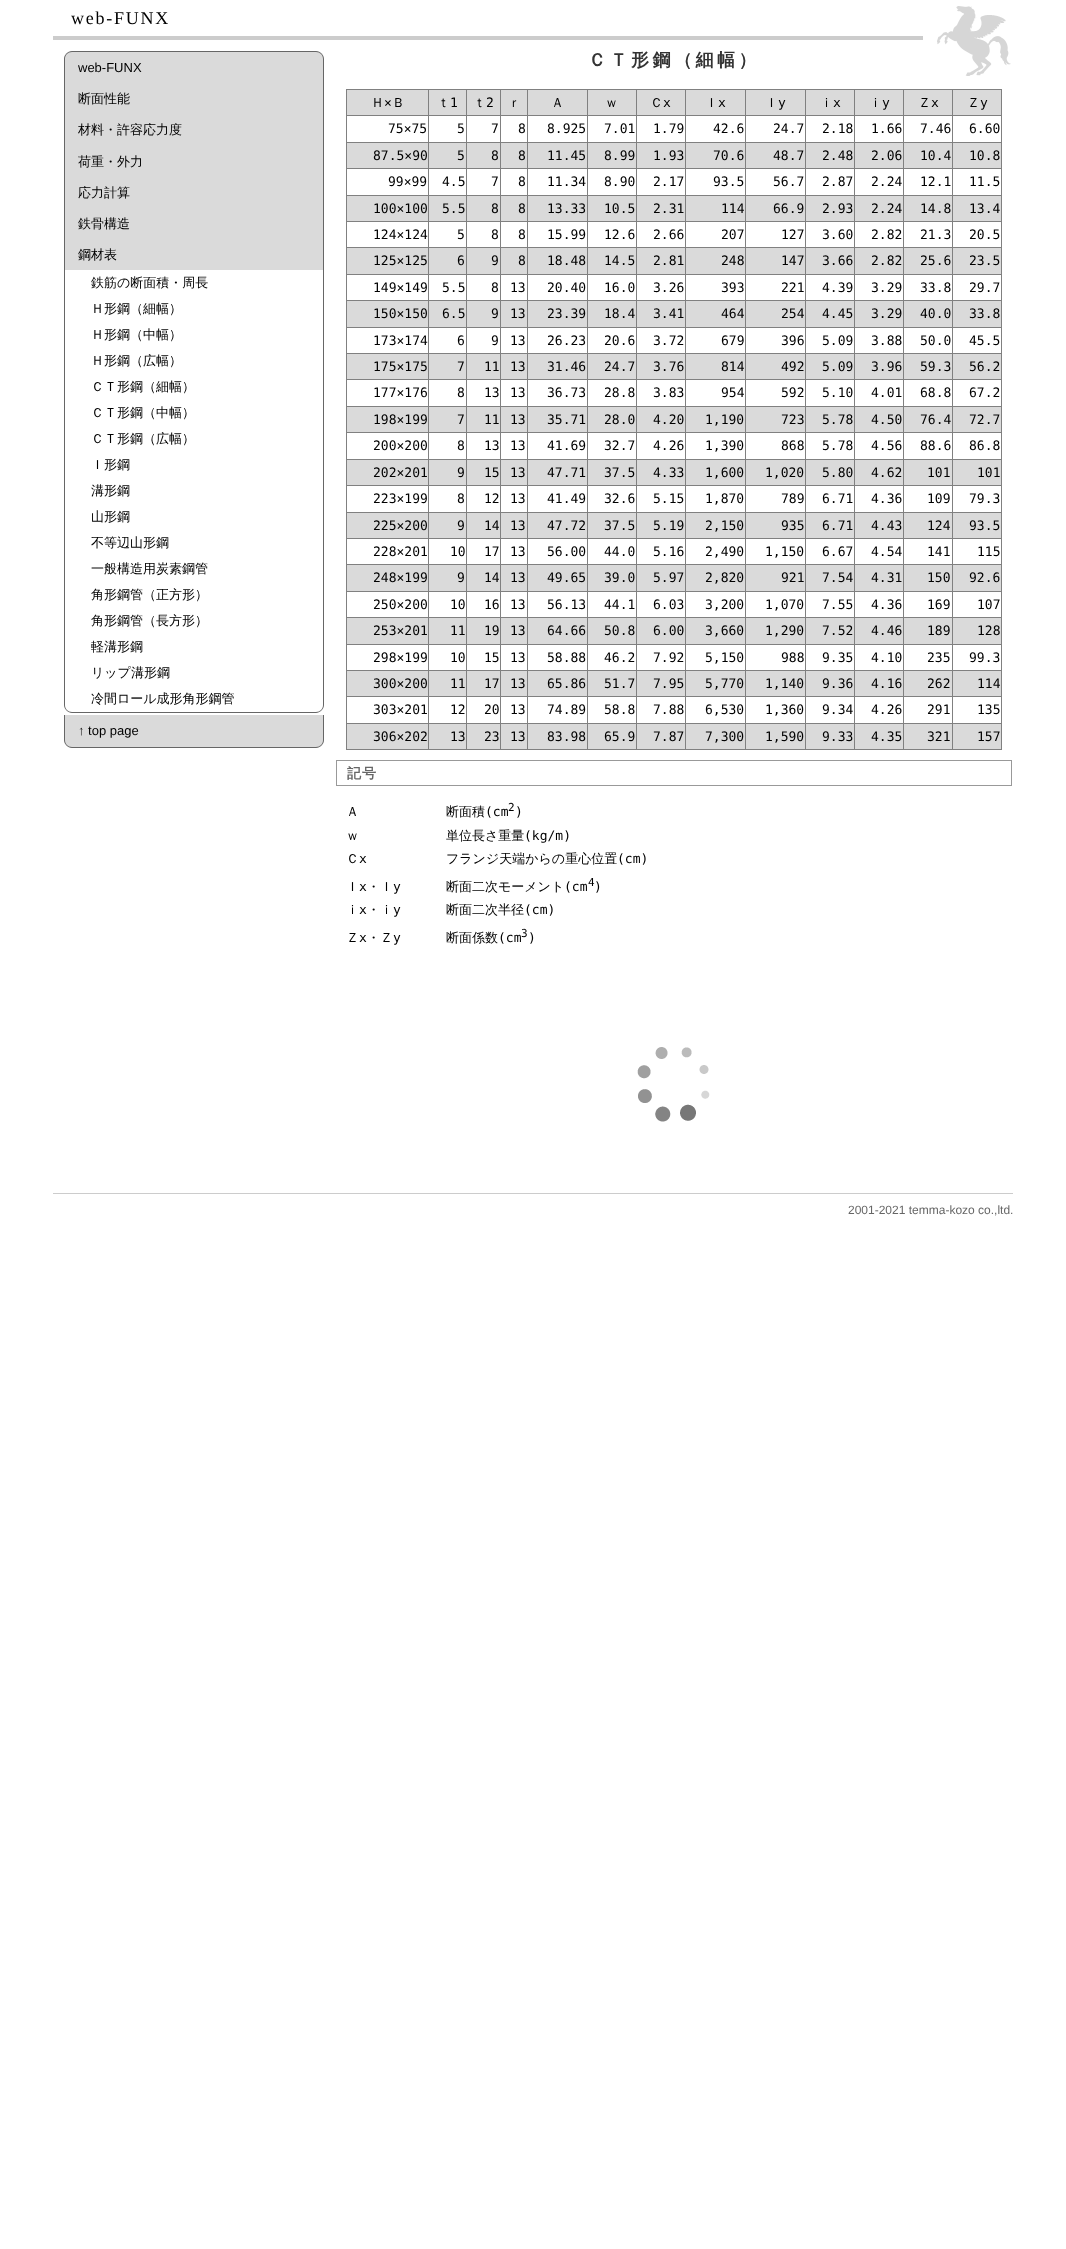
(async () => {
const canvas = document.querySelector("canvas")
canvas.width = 1066
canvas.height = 2249
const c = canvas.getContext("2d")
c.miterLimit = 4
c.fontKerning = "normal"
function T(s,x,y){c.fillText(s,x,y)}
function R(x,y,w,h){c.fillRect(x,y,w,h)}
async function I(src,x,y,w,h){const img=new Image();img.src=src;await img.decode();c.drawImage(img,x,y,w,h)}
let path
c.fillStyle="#fff"
R(0,0,1066,2249)
await I("1.png",937,6,74,70)
c.fillStyle="#ccc"
R(53,36,870,4)
c.letterSpacing="1.75px"
c.font="18px Liberation Serif"
c.fillStyle="#000"
T("web-FUNX",71,24)
c.fillStyle="#dadada"
c.beginPath()
c.roundRect(64,51,260,32,[8,8,0,0])
c.fill()
c.fillStyle="#666"
path = new Path2D("M72 51h244c4 0 8 4 8 8v24h-260v-24c0-4 4-8 8-8zm0 1h244c4 0 7 3 7 7v24h-258v-24c0-4 3-7 7-7z")
c.fill(path,"evenodd")
c.letterSpacing="0px"
c.font="13px Liberation Sans"
c.fillStyle="#000"
T("web-FUNX",78,72)
c.fillStyle="#dadada"
R(65,83,258,187)
c.fillStyle="#666"
R(323,83,1,603)
R(64,83,1,603)
c.font="500 13px WenQuanYi Zen Hei"
c.fillStyle="#000"
T("断面性能",78,103)
T("材料・許容応力度",78,134)
T("荷重・外力",78,166)
T("応力計算",78,197)
T("鉄骨構造",78,228)
T("鋼材表",78,259)
T("鉄筋の断面積・周長",91,287)
T("Ｈ形鋼（細幅）",91,313)
T("Ｈ形鋼（中幅）",91,339)
T("Ｈ形鋼（広幅）",91,365)
T("ＣＴ形鋼（細幅）",91,391)
T("ＣＴ形鋼（中幅）",91,417)
T("ＣＴ形鋼（広幅）",91,443)
T("Ｉ形鋼",91,469)
T("溝形鋼",91,495)
T("山形鋼",91,521)
T("不等辺山形鋼",91,547)
T("一般構造用炭素鋼管",91,573)
T("角形鋼管（正方形）",91,599)
T("角形鋼管（長方形）",91,625)
T("軽溝形鋼",91,651)
T("リップ溝形鋼",91,677)
c.fillStyle="#666"
path = new Path2D("M64 686h260v19c0 4-4 8-8 8h-244c-4 0-8-4-8-8zm1 0h258v19c0 4-3 7-7 7h-244c-4 0-7-3-7-7z")
c.fill(path,"evenodd")
c.fillStyle="#000"
T("冷間ロール成形角形鋼管",91,703)
c.fillStyle="#dadada"
c.beginPath()
c.roundRect(64,715,260,33,[0,0,8,8])
c.fill()
c.fillStyle="#666"
path = new Path2D("M64 715h260v25c0 4-4 8-8 8h-244c-4 0-8-4-8-8zm1 0h258v25c0 4-3 7-7 7h-244c-4 0-7-3-7-7z")
c.fill(path,"evenodd")
c.font="13px Liberation Sans"
c.fillStyle="#000"
T("↑ top page",78,735)
c.letterSpacing="3.5px"
c.font="bold 18px WenQuanYi Zen Hei"
c.fillStyle="#333"
T("ＣＴ形鋼（細幅）",588,66)
c.fillStyle="#808080"
R(346,89,656,1)
R(1001,89,1,661)
R(346,749,656,1)
R(346,89,1,661)
c.fillStyle="#dadada"
R(347,90,654,25)
c.letterSpacing="0px"
c.font="500 13px WenQuanYi Zen Hei"
c.fillStyle="#000"
T("Ｈ",371,107)
c.font="13px DejaVu Sans Mono"
T("×",384,107)
c.font="500 13px WenQuanYi Zen Hei"
T("Ｂ",392,107)
c.fillStyle="#808080"
R(952,115,50,1)
R(952,142,50,1)
c.fillStyle="#dadada"
R(347,143,654,25)
c.fillStyle="#808080"
R(952,168,50,1)
R(952,195,50,1)
c.fillStyle="#dadada"
R(347,196,654,25)
c.fillStyle="#808080"
R(952,221,50,1)
R(952,247,50,1)
c.fillStyle="#dadada"
R(347,248,654,26)
c.fillStyle="#808080"
R(952,274,50,1)
R(952,300,50,1)
c.fillStyle="#dadada"
R(347,301,654,26)
c.fillStyle="#808080"
R(952,327,50,1)
R(952,353,50,1)
c.fillStyle="#dadada"
R(347,354,654,25)
c.fillStyle="#808080"
R(952,379,50,1)
R(952,406,50,1)
c.fillStyle="#dadada"
R(347,407,654,25)
c.fillStyle="#808080"
R(952,432,50,1)
R(952,459,50,1)
c.fillStyle="#dadada"
R(347,460,654,25)
c.fillStyle="#808080"
R(952,485,50,1)
R(952,512,50,1)
c.fillStyle="#dadada"
R(347,513,654,25)
c.fillStyle="#808080"
R(952,538,50,1)
R(952,564,50,1)
c.fillStyle="#dadada"
R(347,565,654,26)
c.fillStyle="#808080"
R(952,591,50,1)
R(952,617,50,1)
c.fillStyle="#dadada"
R(347,618,654,26)
c.fillStyle="#808080"
R(952,644,50,1)
R(952,670,50,1)
c.fillStyle="#dadada"
R(347,671,654,25)
c.fillStyle="#808080"
R(952,696,50,1)
R(952,723,50,1)
c.fillStyle="#dadada"
R(347,724,654,25)
c.fillStyle="#808080"
R(952,723,1,27)
R(903,723,50,1)
R(952,696,1,28)
R(903,696,50,1)
R(952,670,1,27)
R(903,670,50,1)
R(952,644,1,27)
R(903,644,50,1)
R(952,617,1,28)
R(903,617,50,1)
R(952,591,1,27)
R(903,591,50,1)
R(952,564,1,28)
R(903,564,50,1)
R(952,538,1,27)
R(903,538,50,1)
R(952,512,1,27)
R(903,512,50,1)
R(952,485,1,28)
R(903,485,50,1)
R(952,459,1,27)
R(903,459,50,1)
R(952,432,1,28)
R(903,432,50,1)
R(952,406,1,27)
R(903,406,50,1)
R(952,379,1,28)
R(903,379,50,1)
R(952,353,1,27)
R(903,353,50,1)
R(952,327,1,27)
R(903,327,50,1)
R(952,300,1,28)
R(903,300,50,1)
R(952,274,1,27)
R(903,274,50,1)
R(952,247,1,28)
R(903,247,50,1)
R(952,221,1,27)
R(903,221,50,1)
R(952,195,1,27)
R(903,195,50,1)
R(952,168,1,28)
R(903,168,50,1)
R(952,142,1,27)
R(903,142,50,1)
R(952,115,1,28)
R(903,115,50,1)
R(903,723,1,27)
R(854,723,50,1)
R(903,696,1,28)
R(854,696,50,1)
R(903,670,1,27)
R(854,670,50,1)
R(903,644,1,27)
R(854,644,50,1)
R(903,617,1,28)
R(854,617,50,1)
R(903,591,1,27)
R(854,591,50,1)
R(903,564,1,28)
R(854,564,50,1)
R(903,538,1,27)
R(854,538,50,1)
R(903,512,1,27)
R(854,512,50,1)
R(903,485,1,28)
R(854,485,50,1)
R(903,459,1,27)
R(854,459,50,1)
R(903,432,1,28)
R(854,432,50,1)
R(903,406,1,27)
R(854,406,50,1)
R(903,379,1,28)
R(854,379,50,1)
R(903,353,1,27)
R(854,353,50,1)
R(903,327,1,27)
R(854,327,50,1)
R(903,300,1,28)
R(854,300,50,1)
R(903,274,1,27)
R(854,274,50,1)
R(903,247,1,28)
R(854,247,50,1)
R(903,221,1,27)
R(854,221,50,1)
R(903,195,1,27)
R(854,195,50,1)
R(903,168,1,28)
R(854,168,50,1)
R(903,142,1,27)
R(854,142,50,1)
R(903,115,1,28)
R(854,115,50,1)
R(854,723,1,27)
R(805,723,50,1)
R(854,696,1,28)
R(805,696,50,1)
R(854,670,1,27)
R(805,670,50,1)
R(854,644,1,27)
R(805,644,50,1)
R(854,617,1,28)
R(805,617,50,1)
R(854,591,1,27)
R(805,591,50,1)
R(854,564,1,28)
R(805,564,50,1)
R(854,538,1,27)
R(805,538,50,1)
R(854,512,1,27)
R(805,512,50,1)
R(854,485,1,28)
R(805,485,50,1)
R(854,459,1,27)
R(805,459,50,1)
R(854,432,1,28)
R(805,432,50,1)
R(854,406,1,27)
R(805,406,50,1)
R(854,379,1,28)
R(805,379,50,1)
R(854,353,1,27)
R(805,353,50,1)
R(854,327,1,27)
R(805,327,50,1)
R(854,300,1,28)
R(805,300,50,1)
R(854,274,1,27)
R(805,274,50,1)
R(854,247,1,28)
R(805,247,50,1)
R(854,221,1,27)
R(805,221,50,1)
R(854,195,1,27)
R(805,195,50,1)
R(854,168,1,28)
R(805,168,50,1)
R(854,142,1,27)
R(805,142,50,1)
R(854,115,1,28)
R(805,115,50,1)
R(805,723,1,27)
R(745,723,61,1)
R(805,696,1,28)
R(745,696,61,1)
R(805,670,1,27)
R(745,670,61,1)
R(805,644,1,27)
R(745,644,61,1)
R(805,617,1,28)
R(745,617,61,1)
R(805,591,1,27)
R(745,591,61,1)
R(805,564,1,28)
R(745,564,61,1)
R(805,538,1,27)
R(745,538,61,1)
R(805,512,1,27)
R(745,512,61,1)
R(805,485,1,28)
R(745,485,61,1)
R(805,459,1,27)
R(745,459,61,1)
R(805,432,1,28)
R(745,432,61,1)
R(805,406,1,27)
R(745,406,61,1)
R(805,379,1,28)
R(745,379,61,1)
R(805,353,1,27)
R(745,353,61,1)
R(805,327,1,27)
R(745,327,61,1)
R(805,300,1,28)
R(745,300,61,1)
R(805,274,1,27)
R(745,274,61,1)
R(805,247,1,28)
R(745,247,61,1)
R(805,221,1,27)
R(745,221,61,1)
R(805,195,1,27)
R(745,195,61,1)
R(805,168,1,28)
R(745,168,61,1)
R(805,142,1,27)
R(745,142,61,1)
R(805,115,1,28)
R(745,115,61,1)
R(745,723,1,27)
R(685,723,61,1)
R(745,696,1,28)
R(685,696,61,1)
R(745,670,1,27)
R(685,670,61,1)
R(745,644,1,27)
R(685,644,61,1)
R(745,617,1,28)
R(685,617,61,1)
R(745,591,1,27)
R(685,591,61,1)
R(745,564,1,28)
R(685,564,61,1)
R(745,538,1,27)
R(685,538,61,1)
R(745,512,1,27)
R(685,512,61,1)
R(745,485,1,28)
R(685,485,61,1)
R(745,459,1,27)
R(685,459,61,1)
R(745,432,1,28)
R(685,432,61,1)
R(745,406,1,27)
R(685,406,61,1)
R(745,379,1,28)
R(685,379,61,1)
R(745,353,1,27)
R(685,353,61,1)
R(745,327,1,27)
R(685,327,61,1)
R(745,300,1,28)
R(685,300,61,1)
R(745,274,1,27)
R(685,274,61,1)
R(745,247,1,28)
R(685,247,61,1)
R(745,221,1,27)
R(685,221,61,1)
R(745,195,1,27)
R(685,195,61,1)
R(745,168,1,28)
R(685,168,61,1)
R(745,142,1,27)
R(685,142,61,1)
R(745,115,1,28)
R(685,115,61,1)
R(685,723,1,27)
R(636,723,50,1)
R(685,696,1,28)
R(636,696,50,1)
R(685,670,1,27)
R(636,670,50,1)
R(685,644,1,27)
R(636,644,50,1)
R(685,617,1,28)
R(636,617,50,1)
R(685,591,1,27)
R(636,591,50,1)
R(685,564,1,28)
R(636,564,50,1)
R(685,538,1,27)
R(636,538,50,1)
R(685,512,1,27)
R(636,512,50,1)
R(685,485,1,28)
R(636,485,50,1)
R(685,459,1,27)
R(636,459,50,1)
R(685,432,1,28)
R(636,432,50,1)
R(685,406,1,27)
R(636,406,50,1)
R(685,379,1,28)
R(636,379,50,1)
R(685,353,1,27)
R(636,353,50,1)
R(685,327,1,27)
R(636,327,50,1)
R(685,300,1,28)
R(636,300,50,1)
R(685,274,1,27)
R(636,274,50,1)
R(685,247,1,28)
R(636,247,50,1)
R(685,221,1,27)
R(636,221,50,1)
R(685,195,1,27)
R(636,195,50,1)
R(685,168,1,28)
R(636,168,50,1)
R(685,142,1,27)
R(636,142,50,1)
R(685,115,1,28)
R(636,115,50,1)
R(636,723,1,27)
R(587,723,50,1)
R(636,696,1,28)
R(587,696,50,1)
R(636,670,1,27)
R(587,670,50,1)
R(636,644,1,27)
R(587,644,50,1)
R(636,617,1,28)
R(587,617,50,1)
R(636,591,1,27)
R(587,591,50,1)
R(636,564,1,28)
R(587,564,50,1)
R(636,538,1,27)
R(587,538,50,1)
R(636,512,1,27)
R(587,512,50,1)
R(636,485,1,28)
R(587,485,50,1)
R(636,459,1,27)
R(587,459,50,1)
R(636,432,1,28)
R(587,432,50,1)
R(636,406,1,27)
R(587,406,50,1)
R(636,379,1,28)
R(587,379,50,1)
R(636,353,1,27)
R(587,353,50,1)
R(636,327,1,27)
R(587,327,50,1)
R(636,300,1,28)
R(587,300,50,1)
R(636,274,1,27)
R(587,274,50,1)
R(636,247,1,28)
R(587,247,50,1)
R(636,221,1,27)
R(587,221,50,1)
R(636,195,1,27)
R(587,195,50,1)
R(636,168,1,28)
R(587,168,50,1)
R(636,142,1,27)
R(587,142,50,1)
R(636,115,1,28)
R(587,115,50,1)
R(587,723,1,27)
R(527,723,61,1)
R(587,696,1,28)
R(527,696,61,1)
R(587,670,1,27)
R(527,670,61,1)
R(587,644,1,27)
R(527,644,61,1)
R(587,617,1,28)
R(527,617,61,1)
R(587,591,1,27)
R(527,591,61,1)
R(587,564,1,28)
R(527,564,61,1)
R(587,538,1,27)
R(527,538,61,1)
R(587,512,1,27)
R(527,512,61,1)
R(587,485,1,28)
R(527,485,61,1)
R(587,459,1,27)
R(527,459,61,1)
R(587,432,1,28)
R(527,432,61,1)
R(587,406,1,27)
R(527,406,61,1)
R(587,379,1,28)
R(527,379,61,1)
R(587,353,1,27)
R(527,353,61,1)
R(587,327,1,27)
R(527,327,61,1)
R(587,300,1,28)
R(527,300,61,1)
R(587,274,1,27)
R(527,274,61,1)
R(587,247,1,28)
R(527,247,61,1)
R(587,221,1,27)
R(527,221,61,1)
R(587,195,1,27)
R(527,195,61,1)
R(587,168,1,28)
R(527,168,61,1)
R(587,142,1,27)
R(527,142,61,1)
R(587,115,1,28)
R(527,115,61,1)
R(527,723,1,27)
R(500,723,28,1)
R(527,696,1,28)
R(500,696,28,1)
R(527,670,1,27)
R(500,670,28,1)
R(527,644,1,27)
R(500,644,28,1)
R(527,617,1,28)
R(500,617,28,1)
R(527,591,1,27)
R(500,591,28,1)
R(527,564,1,28)
R(500,564,28,1)
R(527,538,1,27)
R(500,538,28,1)
R(527,512,1,27)
R(500,512,28,1)
R(527,485,1,28)
R(500,485,28,1)
R(527,459,1,27)
R(500,459,28,1)
R(527,432,1,28)
R(500,432,28,1)
R(527,406,1,27)
R(500,406,28,1)
R(527,379,1,28)
R(500,379,28,1)
R(527,353,1,27)
R(500,353,28,1)
R(527,327,1,27)
R(500,327,28,1)
R(527,300,1,28)
R(500,300,28,1)
R(527,274,1,27)
R(500,274,28,1)
R(527,247,1,28)
R(500,247,28,1)
R(527,221,1,27)
R(500,221,28,1)
R(527,195,1,27)
R(500,195,28,1)
R(527,168,1,28)
R(500,168,28,1)
R(527,142,1,27)
R(500,142,28,1)
R(527,115,1,28)
R(500,115,28,1)
R(500,723,1,27)
R(466,723,35,1)
R(500,696,1,28)
R(466,696,35,1)
R(500,670,1,27)
R(466,670,35,1)
R(500,644,1,27)
R(466,644,35,1)
R(500,617,1,28)
R(466,617,35,1)
R(500,591,1,27)
R(466,591,35,1)
R(500,564,1,28)
R(466,564,35,1)
R(500,538,1,27)
R(466,538,35,1)
R(500,512,1,27)
R(466,512,35,1)
R(500,485,1,28)
R(466,485,35,1)
R(500,459,1,27)
R(466,459,35,1)
R(500,432,1,28)
R(466,432,35,1)
R(500,406,1,27)
R(466,406,35,1)
R(500,379,1,28)
R(466,379,35,1)
R(500,353,1,27)
R(466,353,35,1)
R(500,327,1,27)
R(466,327,35,1)
R(500,300,1,28)
R(466,300,35,1)
R(500,274,1,27)
R(466,274,35,1)
R(500,247,1,28)
R(466,247,35,1)
R(500,221,1,27)
R(466,221,35,1)
R(500,195,1,27)
R(466,195,35,1)
R(500,168,1,28)
R(466,168,35,1)
R(500,142,1,27)
R(466,142,35,1)
R(500,115,1,28)
R(466,115,35,1)
R(466,723,1,27)
R(428,723,39,1)
R(466,696,1,28)
R(428,696,39,1)
R(466,670,1,27)
R(428,670,39,1)
R(466,644,1,27)
R(428,644,39,1)
R(466,617,1,28)
R(428,617,39,1)
R(466,591,1,27)
R(428,591,39,1)
R(466,564,1,28)
R(428,564,39,1)
R(466,538,1,27)
R(428,538,39,1)
R(466,512,1,27)
R(428,512,39,1)
R(466,485,1,28)
R(428,485,39,1)
R(466,459,1,27)
R(428,459,39,1)
R(466,432,1,28)
R(428,432,39,1)
R(466,406,1,27)
R(428,406,39,1)
R(466,379,1,28)
R(428,379,39,1)
R(466,353,1,27)
R(428,353,39,1)
R(466,327,1,27)
R(428,327,39,1)
R(466,300,1,28)
R(428,300,39,1)
R(466,274,1,27)
R(428,274,39,1)
R(466,247,1,28)
R(428,247,39,1)
R(466,221,1,27)
R(428,221,39,1)
R(466,195,1,27)
R(428,195,39,1)
R(466,168,1,28)
R(428,168,39,1)
R(466,142,1,27)
R(428,142,39,1)
R(466,115,1,28)
R(428,115,39,1)
R(428,723,1,27)
R(346,723,83,1)
R(428,696,1,28)
R(346,696,83,1)
R(428,670,1,27)
R(346,670,83,1)
R(428,644,1,27)
R(346,644,83,1)
R(428,617,1,28)
R(346,617,83,1)
R(428,591,1,27)
R(346,591,83,1)
R(428,564,1,28)
R(346,564,83,1)
R(428,538,1,27)
R(346,538,83,1)
R(428,512,1,27)
R(346,512,83,1)
R(428,485,1,28)
R(346,485,83,1)
R(428,459,1,27)
R(346,459,83,1)
R(428,432,1,28)
R(346,432,83,1)
R(428,406,1,27)
R(346,406,83,1)
R(428,379,1,28)
R(346,379,83,1)
R(428,353,1,27)
R(346,353,83,1)
R(428,327,1,27)
R(346,327,83,1)
R(428,300,1,28)
R(346,300,83,1)
R(428,274,1,27)
R(346,274,83,1)
R(428,247,1,28)
R(346,247,83,1)
R(428,221,1,27)
R(346,221,83,1)
R(428,195,1,27)
R(346,195,83,1)
R(428,168,1,28)
R(346,168,83,1)
R(428,142,1,27)
R(346,142,83,1)
R(428,115,1,28)
R(346,115,83,1)
R(428,89,1,27)
c.fillStyle="#000"
T("ｔ",437,107)
c.font="13px DejaVu Sans Mono"
T("1",450,107)
c.fillStyle="#808080"
R(466,89,1,27)
c.font="500 13px WenQuanYi Zen Hei"
c.fillStyle="#000"
T("ｔ",473,107)
c.font="13px DejaVu Sans Mono"
T("2",486,107)
c.fillStyle="#808080"
R(500,89,1,27)
c.font="500 13px WenQuanYi Zen Hei"
c.fillStyle="#000"
T("ｒ",508,107)
c.fillStyle="#808080"
R(527,89,1,27)
c.fillStyle="#000"
T("Ａ",551,107)
c.fillStyle="#808080"
R(587,89,1,27)
c.fillStyle="#000"
T("ｗ",605,107)
c.fillStyle="#808080"
R(636,89,1,27)
c.fillStyle="#000"
T("Ｃ",650,107)
c.font="13px DejaVu Sans Mono"
T("x",663,107)
c.fillStyle="#808080"
R(685,89,1,27)
c.font="500 13px WenQuanYi Zen Hei"
c.fillStyle="#000"
T("Ｉ",705,107)
c.font="13px DejaVu Sans Mono"
T("x",718,107)
c.fillStyle="#808080"
R(745,89,1,27)
c.font="500 13px WenQuanYi Zen Hei"
c.fillStyle="#000"
T("Ｉ",765,107)
c.font="13px DejaVu Sans Mono"
T("y",778,107)
c.fillStyle="#808080"
R(805,89,1,27)
c.font="500 13px WenQuanYi Zen Hei"
c.fillStyle="#000"
T("ｉ",820,107)
c.font="13px DejaVu Sans Mono"
T("x",833,107)
c.fillStyle="#808080"
R(854,89,1,27)
c.font="500 13px WenQuanYi Zen Hei"
c.fillStyle="#000"
T("ｉ",869,107)
c.font="13px DejaVu Sans Mono"
T("y",882,107)
c.fillStyle="#808080"
R(903,89,1,27)
c.font="500 13px WenQuanYi Zen Hei"
c.fillStyle="#000"
T("Ｚ",918,107)
c.font="13px DejaVu Sans Mono"
T("x",931,107)
c.fillStyle="#808080"
R(952,89,1,27)
c.font="500 13px WenQuanYi Zen Hei"
c.fillStyle="#000"
T("Ｚ",967,107)
c.font="13px DejaVu Sans Mono"
T("y",980,107)
T("75×75",388,133)
T("5",457,133)
T("7",491,133)
T("8",518,133)
T("8.925",547,133)
T("7.01",604,133)
T("1.79",653,133)
T("42.6",713,133)
T("24.7",773,133)
T("2.18",822,133)
T("1.66",871,133)
T("7.46",920,133)
T("6.60",969,133)
T("87.5×90",373,160)
T("5",457,160)
T("8",491,160)
T("8",518,160)
T("11.45",547,160)
T("8.99",604,160)
T("1.93",653,160)
T("70.6",713,160)
T("48.7",773,160)
T("2.48",822,160)
T("2.06",871,160)
T("10.4",920,160)
T("10.8",969,160)
T("99×99",388,186)
T("4.5",442,186)
T("7",491,186)
T("8",518,186)
T("11.34",547,186)
T("8.90",604,186)
T("2.17",653,186)
T("93.5",713,186)
T("56.7",773,186)
T("2.87",822,186)
T("2.24",871,186)
T("12.1",920,186)
T("11.5",969,186)
T("100×100",373,213)
T("5.5",442,213)
T("8",491,213)
T("8",518,213)
T("13.33",547,213)
T("10.5",604,213)
T("2.31",653,213)
T("114",721,213)
T("66.9",773,213)
T("2.93",822,213)
T("2.24",871,213)
T("14.8",920,213)
T("13.4",969,213)
T("124×124",373,239)
T("5",457,239)
T("8",491,239)
T("8",518,239)
T("15.99",547,239)
T("12.6",604,239)
T("2.66",653,239)
T("207",721,239)
T("127",781,239)
T("3.60",822,239)
T("2.82",871,239)
T("21.3",920,239)
T("20.5",969,239)
T("125×125",373,265)
T("6",457,265)
T("9",491,265)
T("8",518,265)
T("18.48",547,265)
T("14.5",604,265)
T("2.81",653,265)
T("248",721,265)
T("147",781,265)
T("3.66",822,265)
T("2.82",871,265)
T("25.6",920,265)
T("23.5",969,265)
T("149×149",373,292)
T("5.5",442,292)
T("8",491,292)
T("13",510,292)
T("20.40",547,292)
T("16.0",604,292)
T("3.26",653,292)
T("393",721,292)
T("221",781,292)
T("4.39",822,292)
T("3.29",871,292)
T("33.8",920,292)
T("29.7",969,292)
T("150×150",373,318)
T("6.5",442,318)
T("9",491,318)
T("13",510,318)
T("23.39",547,318)
T("18.4",604,318)
T("3.41",653,318)
T("464",721,318)
T("254",781,318)
T("4.45",822,318)
T("3.29",871,318)
T("40.0",920,318)
T("33.8",969,318)
T("173×174",373,345)
T("6",457,345)
T("9",491,345)
T("13",510,345)
T("26.23",547,345)
T("20.6",604,345)
T("3.72",653,345)
T("679",721,345)
T("396",781,345)
T("5.09",822,345)
T("3.88",871,345)
T("50.0",920,345)
T("45.5",969,345)
T("175×175",373,371)
T("7",457,371)
T("11",484,371)
T("13",510,371)
T("31.46",547,371)
T("24.7",604,371)
T("3.76",653,371)
T("814",721,371)
T("492",781,371)
T("5.09",822,371)
T("3.96",871,371)
T("59.3",920,371)
T("56.2",969,371)
T("177×176",373,397)
T("8",457,397)
T("13",484,397)
T("13",510,397)
T("36.73",547,397)
T("28.8",604,397)
T("3.83",653,397)
T("954",721,397)
T("592",781,397)
T("5.10",822,397)
T("4.01",871,397)
T("68.8",920,397)
T("67.2",969,397)
T("198×199",373,424)
T("7",457,424)
T("11",484,424)
T("13",510,424)
T("35.71",547,424)
T("28.0",604,424)
T("4.20",653,424)
T("1,190",705,424)
T("723",781,424)
T("5.78",822,424)
T("4.50",871,424)
T("76.4",920,424)
T("72.7",969,424)
T("200×200",373,450)
T("8",457,450)
T("13",484,450)
T("13",510,450)
T("41.69",547,450)
T("32.7",604,450)
T("4.26",653,450)
T("1,390",705,450)
T("868",781,450)
T("5.78",822,450)
T("4.56",871,450)
T("88.6",920,450)
T("86.8",969,450)
T("202×201",373,477)
T("9",457,477)
T("15",484,477)
T("13",510,477)
T("47.71",547,477)
T("37.5",604,477)
T("4.33",653,477)
T("1,600",705,477)
T("1,020",765,477)
T("5.80",822,477)
T("4.62",871,477)
T("101",927,477)
T("101",977,477)
T("223×199",373,503)
T("8",457,503)
T("12",484,503)
T("13",510,503)
T("41.49",547,503)
T("32.6",604,503)
T("5.15",653,503)
T("1,870",705,503)
T("789",781,503)
T("6.71",822,503)
T("4.36",871,503)
T("109",927,503)
T("79.3",969,503)
T("225×200",373,530)
T("9",457,530)
T("14",484,530)
T("13",510,530)
T("47.72",547,530)
T("37.5",604,530)
T("5.19",653,530)
T("2,150",705,530)
T("935",781,530)
T("6.71",822,530)
T("4.43",871,530)
T("124",927,530)
T("93.5",969,530)
T("228×201",373,556)
T("10",450,556)
T("17",484,556)
T("13",510,556)
T("56.00",547,556)
T("44.0",604,556)
T("5.16",653,556)
T("2,490",705,556)
T("1,150",765,556)
T("6.67",822,556)
T("4.54",871,556)
T("141",927,556)
T("115",977,556)
T("248×199",373,582)
T("9",457,582)
T("14",484,582)
T("13",510,582)
T("49.65",547,582)
T("39.0",604,582)
T("5.97",653,582)
T("2,820",705,582)
T("921",781,582)
T("7.54",822,582)
T("4.31",871,582)
T("150",927,582)
T("92.6",969,582)
T("250×200",373,609)
T("10",450,609)
T("16",484,609)
T("13",510,609)
T("56.13",547,609)
T("44.1",604,609)
T("6.03",653,609)
T("3,200",705,609)
T("1,070",765,609)
T("7.55",822,609)
T("4.36",871,609)
T("169",927,609)
T("107",977,609)
T("253×201",373,635)
T("11",450,635)
T("19",484,635)
T("13",510,635)
T("64.66",547,635)
T("50.8",604,635)
T("6.00",653,635)
T("3,660",705,635)
T("1,290",765,635)
T("7.52",822,635)
T("4.46",871,635)
T("189",927,635)
T("128",977,635)
T("298×199",373,662)
T("10",450,662)
T("15",484,662)
T("13",510,662)
T("58.88",547,662)
T("46.2",604,662)
T("7.92",653,662)
T("5,150",705,662)
T("988",781,662)
T("9.35",822,662)
T("4.10",871,662)
T("235",927,662)
T("99.3",969,662)
T("300×200",373,688)
T("11",450,688)
T("17",484,688)
T("13",510,688)
T("65.86",547,688)
T("51.7",604,688)
T("7.95",653,688)
T("5,770",705,688)
T("1,140",765,688)
T("9.36",822,688)
T("4.16",871,688)
T("262",927,688)
T("114",977,688)
T("303×201",373,714)
T("12",450,714)
T("20",484,714)
T("13",510,714)
T("74.89",547,714)
T("58.8",604,714)
T("7.88",653,714)
T("6,530",705,714)
T("1,360",765,714)
T("9.34",822,714)
T("4.26",871,714)
T("291",927,714)
T("135",977,714)
T("306×202",373,741)
T("13",450,741)
T("23",484,741)
T("13",510,741)
T("83.98",547,741)
T("65.9",604,741)
T("7.87",653,741)
T("7,300",705,741)
T("1,590",765,741)
T("9.33",822,741)
T("4.35",871,741)
T("321",927,741)
T("157",977,741)
c.strokeStyle="#999"
c.strokeRect(336.5,760.5,675,25)
c.letterSpacing="1px"
c.font="bold 14px WenQuanYi Zen Hei"
c.fillStyle="#666"
T("記号",347,778)
c.letterSpacing="0px"
c.font="500 13px WenQuanYi Zen Hei"
c.fillStyle="#000"
T("Ａ",346,816)
T("断面積",446,816)
c.font="13px DejaVu Sans Mono"
T("(cm",485,816)
c.font="11px DejaVu Sans Mono"
T("2",508,811)
c.font="13px DejaVu Sans Mono"
T(")",515,816)
c.font="500 13px WenQuanYi Zen Hei"
T("ｗ",346,840)
T("単位長さ重量",446,840)
c.font="13px DejaVu Sans Mono"
T("(kg/m)",524,840)
c.font="500 13px WenQuanYi Zen Hei"
T("Ｃ",346,863)
c.font="13px DejaVu Sans Mono"
T("x",359,863)
c.font="500 13px WenQuanYi Zen Hei"
T("フランジ天端からの重心位置",446,863)
c.font="13px DejaVu Sans Mono"
T("(cm)",617,863)
c.font="500 13px WenQuanYi Zen Hei"
T("Ｉ",346,891)
c.font="13px DejaVu Sans Mono"
T("x",359,891)
c.font="500 13px WenQuanYi Zen Hei"
T("・Ｉ",367,891)
c.font="13px DejaVu Sans Mono"
T("y",393,891)
c.font="500 13px WenQuanYi Zen Hei"
T("断面二次モーメント",446,891)
c.font="13px DejaVu Sans Mono"
T("(cm",564,891)
c.font="11px DejaVu Sans Mono"
T("4",588,886)
c.font="13px DejaVu Sans Mono"
T(")",594,891)
c.font="500 13px WenQuanYi Zen Hei"
T("ｉ",346,914)
c.font="13px DejaVu Sans Mono"
T("x",359,914)
c.font="500 13px WenQuanYi Zen Hei"
T("・ｉ",367,914)
c.font="13px DejaVu Sans Mono"
T("y",393,914)
c.font="500 13px WenQuanYi Zen Hei"
T("断面二次半径",446,914)
c.font="13px DejaVu Sans Mono"
T("(cm)",524,914)
c.font="500 13px WenQuanYi Zen Hei"
T("Ｚ",346,942)
c.font="13px DejaVu Sans Mono"
T("x",359,942)
c.font="500 13px WenQuanYi Zen Hei"
T("・Ｚ",367,942)
c.font="13px DejaVu Sans Mono"
T("y",393,942)
c.font="500 13px WenQuanYi Zen Hei"
T("断面係数",446,942)
c.font="13px DejaVu Sans Mono"
T("(cm",498,942)
c.font="11px DejaVu Sans Mono"
T("3",521,937)
c.font="13px DejaVu Sans Mono"
T(")",528,942)
await I("2.png",637,1047,73,75)
c.fillStyle="#ccc"
R(53,1193,960,1)
c.font="12px Liberation Sans"
c.fillStyle="#666"
T("2001-2021 temma-kozo co.,ltd.",848,1214)
})()
